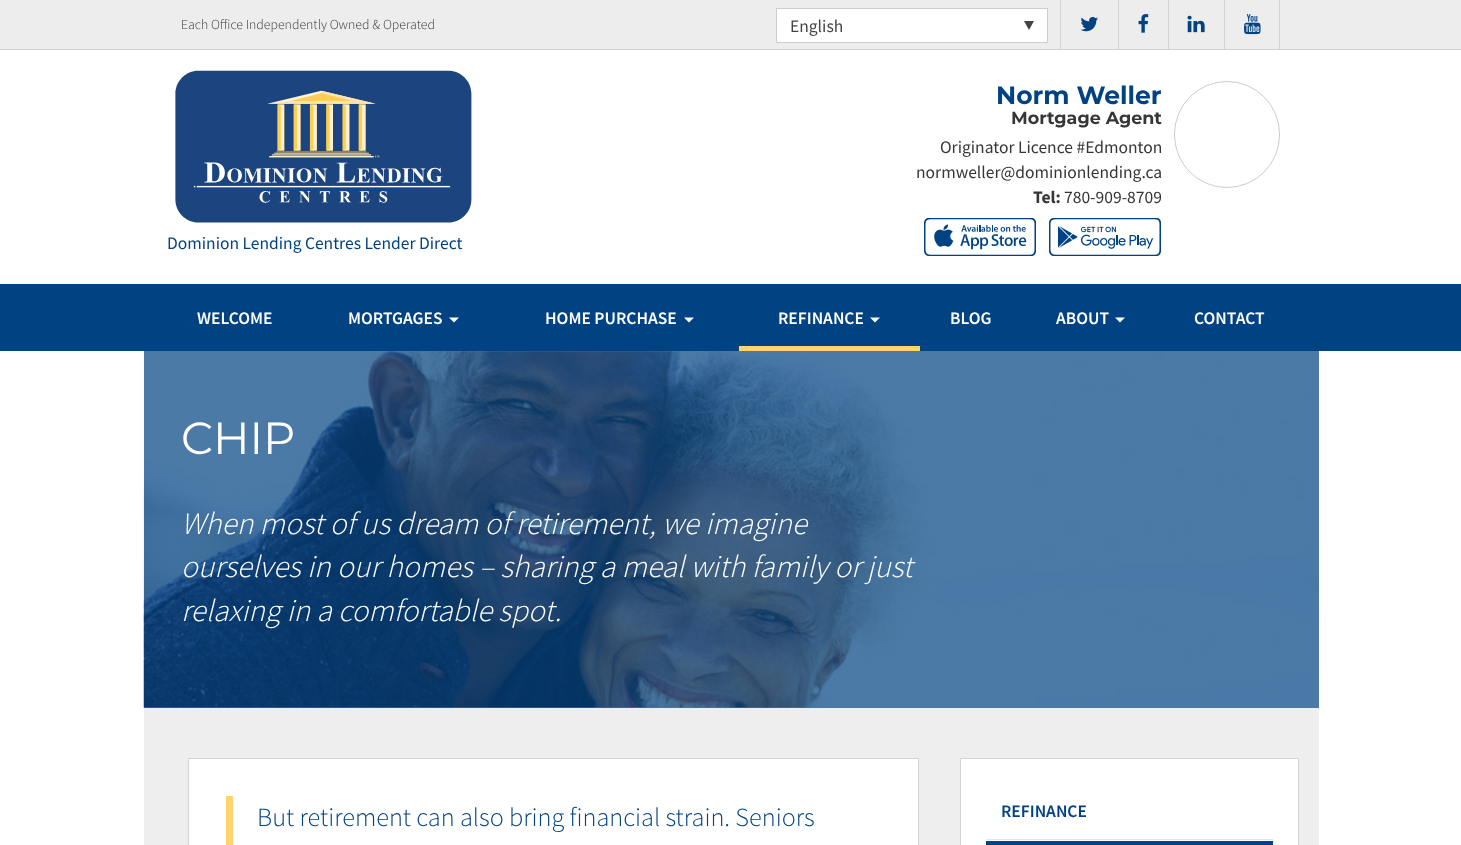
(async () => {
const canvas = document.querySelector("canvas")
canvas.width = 1461
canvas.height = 845
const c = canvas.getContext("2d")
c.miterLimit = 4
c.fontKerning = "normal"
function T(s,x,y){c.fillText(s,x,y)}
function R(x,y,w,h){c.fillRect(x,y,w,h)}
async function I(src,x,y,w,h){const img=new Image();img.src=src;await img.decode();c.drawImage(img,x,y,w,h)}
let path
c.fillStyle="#fff"
R(0,0,1461,845)
c.fillStyle="#4d7ba8"
R(144,351,1175,357)
c.fillStyle="#ededed"
R(0,0,1461,49)
c.fillStyle="#d3d3d3"
R(0,49,1461,1)
c.font="300 13.75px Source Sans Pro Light"
c.fillStyle="#363636"
T("Each Office Independently Owned & Operated",181,29)
c.fillStyle="#fff"
c.beginPath()
c.rect(776.5,8.5,271,34)
c.fill()
c.strokeStyle="#cdcdcd"
c.stroke()
c.font="17.5px Source Sans Pro"
c.fillStyle="#444"
T("English",790,32)
path = new Path2D("M1024 21h10l-5 9z")
c.fill(path)
c.fillStyle="#d3d3d3"
R(1060,0,1,49)
await I("1.png",1080,17,18,15)
R(1118,0,1,49)
await I("2.png",1138,14,11,19)
R(1168,0,1,49)
await I("3.png",1187,15,18,18)
R(1279,0,1,49)
R(1224,0,1,49)
await I("4.png",1244,14,17,21)
c.font="bold 25px Montserrat"
c.fillStyle="#004282"
T("Norm Weller",996,104)
c.font="bold 17.5px Montserrat"
c.fillStyle="#363636"
T("Mortgage Agent",1011,124)
c.font="17.5px Source Sans Pro"
T("Originator Licence #Edmonton",940,153)
T("normweller@dominionlending.ca",916,178)
c.font="bold 17.5px Source Sans Pro"
T("Tel:",1033,203)
c.font="17.5px Source Sans Pro"
T("780-909-8709",1064,203)
await I("5.png",924,218,112,38)
await I("6.png",1049,218,112,38)
c.beginPath()
c.roundRect(1174.5,81.5,105,106,52.5)
c.stroke()
await I("7.png",175,70,297,153)
c.fillStyle="#004282"
T("Dominion Lending Centres Lender Direct",167,249)
R(0,284,1461,67)
c.font="600 17.5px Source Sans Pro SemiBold"
c.fillStyle="#fff"
T("WELCOME",197,324)
T("MORTGAGES",348,324)
path = new Path2D("M449 317.5h10l-5 5z")
c.fill(path)
T("HOME PURCHASE",545,324)
path = new Path2D("M684 317.5h10l-5 5z")
c.fill(path)
T("REFINANCE",778,324)
path = new Path2D("M870 317.5h10l-5 5z")
c.fill(path)
c.fillStyle="#fed46c"
R(739,346,181,5)
c.fillStyle="#fff"
T("BLOG",950,324)
T("ABOUT",1056,324)
path = new Path2D("M1115 317.5h10l-5 5z")
c.fill(path)
T("CONTACT",1194,324)
await I("8.png",143,351,1176,357)
c.font="45px Montserrat"
T("CHIP",181,454)
c.font="italic 300 31.25px Source Sans Pro Light"
T("When most of us dream of retirement, we imagine",181,534)
T("ourselves in our homes – sharing a meal with family or just",181,577)
T("relaxing in a comfortable spot.",181,621)
c.fillStyle="#eee"
R(144,708,1175,137)
c.fillStyle="#fff"
c.beginPath()
c.rect(188.5,758.5,730,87)
c.fill()
c.strokeStyle="#d3d3d3"
c.stroke()
c.fillStyle="#fed46c"
R(226,796,7,49)
c.font="300 26.25px Source Sans Pro Light"
c.fillStyle="#004282"
T("But retirement can also bring financial strain. Seniors",257,826)
c.fillStyle="#fff"
c.beginPath()
c.rect(960.5,758.5,338,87)
c.fill()
c.stroke()
c.fillStyle="#e6e6e6"
R(986,839,287,1)
c.font="600 17.5px Source Sans Pro SemiBold"
c.fillStyle="#004282"
T("REFINANCE",1001,817)
R(986,841,287,4)
})()
